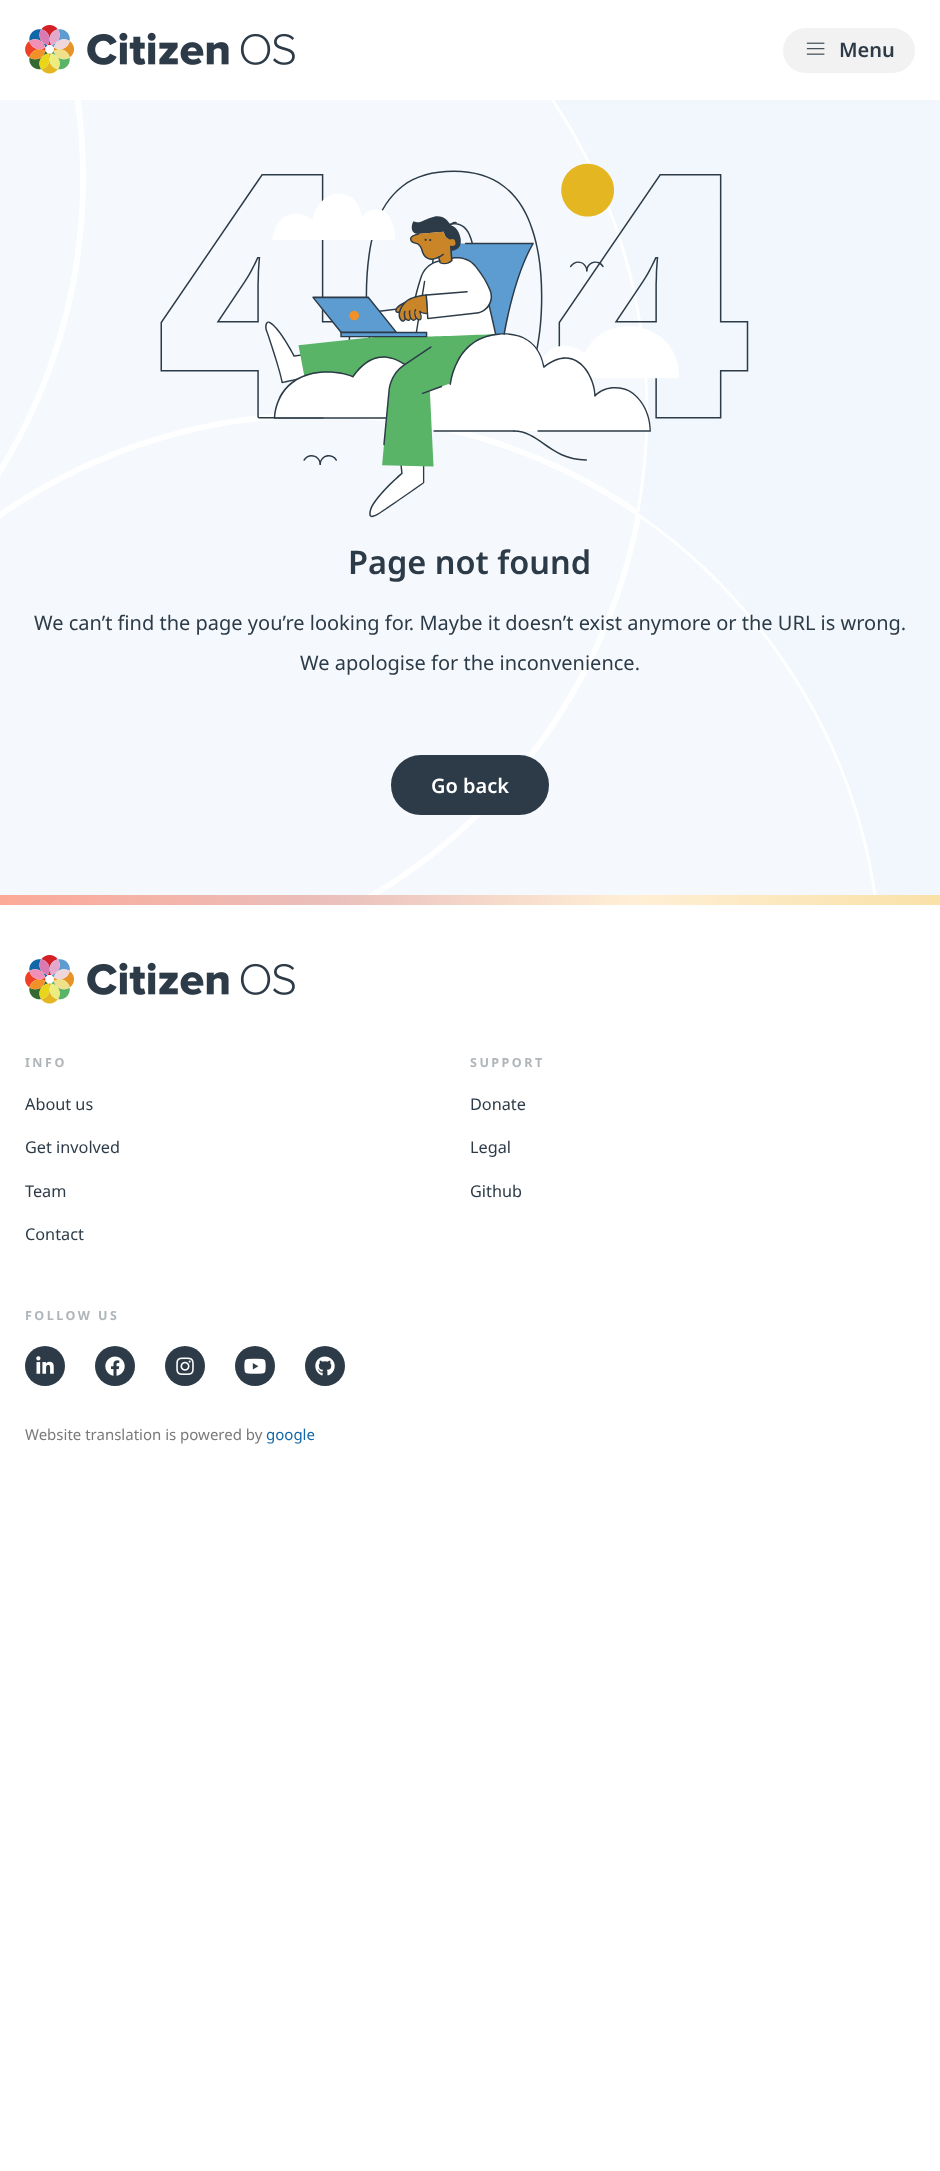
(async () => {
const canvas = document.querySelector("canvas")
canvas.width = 940
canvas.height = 2171
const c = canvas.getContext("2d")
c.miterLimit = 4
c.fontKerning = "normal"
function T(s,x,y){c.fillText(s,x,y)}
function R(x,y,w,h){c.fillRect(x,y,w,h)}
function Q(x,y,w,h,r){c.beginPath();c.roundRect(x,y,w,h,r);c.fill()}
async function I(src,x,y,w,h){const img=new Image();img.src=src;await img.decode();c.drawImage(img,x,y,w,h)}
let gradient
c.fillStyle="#fff"
R(0,0,940,2171)
await I("1.png",25,25,270,49)
c.fillStyle="#f2f2f2"
Q(783,28,132,45,22.5)
await I("2.png",806,42,19,13)
c.font="600 20px Noto Sans"
c.fillStyle="#2c3b47"
T("Menu",839,57)
c.fillStyle="#f1f7fc"
R(0,100,940,795)
await I("3.png",0,100,877,795)
await I("4.png",160,163,589,355)
c.font="600 32.5px Noto Sans"
c.fillStyle="#2c3b47"
T("Page not found",348,574)
c.font="20px Noto Sans"
T("We can’t find the page you’re looking for. Maybe it doesn’t exist anymore or the URL is wrong.",34,630)
T("We apologise for the inconvenience.",300,670)
c.beginPath()
c.roundRect(392.5,756.5,155,57,28.5)
c.fill()
c.strokeStyle="#2c3b47"
c.lineWidth=3
c.stroke()
c.font="600 20px Noto Sans"
c.fillStyle="#fff"
T("Go back",431,793)
gradient = c.createLinearGradient(0,900,940,900)
gradient.addColorStop(0,"#fca997")
gradient.addColorStop(.35,"#eabfbc")
gradient.addColorStop(.67,"#ffefd6")
gradient.addColorStop(1,"#f9e1a7")
c.fillStyle = gradient
R(0,895,940,10)
await I("1.png",25,955,270,49)
c.letterSpacing="2.5px"
c.font="bold 12.5px Noto Sans"
c.fillStyle="#afb5b9"
T("INFO",25,1067)
c.letterSpacing="0px"
c.font="16.25px Noto Sans"
c.fillStyle="#2c3b47"
T("About us",25,1110)
T("Get involved",25,1153)
T("Team",25,1197)
T("Contact",25,1240)
c.letterSpacing="2.5px"
c.font="bold 12.5px Noto Sans"
c.fillStyle="#afb5b9"
T("SUPPORT",470,1067)
c.letterSpacing="0px"
c.font="16.25px Noto Sans"
c.fillStyle="#2c3b47"
T("Donate",470,1110)
T("Legal",470,1153)
T("Github",470,1197)
c.letterSpacing="2.5px"
c.font="bold 12.5px Noto Sans"
c.fillStyle="#afb5b9"
T("FOLLOW US",25,1320)
c.fillStyle="#2c3b47"
c.beginPath()
c.arc(45,1366,20,0,7)
c.fill()
await I("5.png",36,1356,18,18)
c.beginPath()
c.arc(115,1366,20,0,7)
c.fill()
await I("6.png",105,1356,20,20)
c.beginPath()
c.arc(185,1366,20,0,7)
c.fill()
await I("7.png",176,1357,18,18)
c.beginPath()
c.arc(255,1366,20,0,7)
c.fill()
await I("8.png",244,1358,22,16)
c.beginPath()
c.arc(325,1366,20,0,7)
c.fill()
await I("9.png",315,1356,20,20)
c.letterSpacing="0px"
c.font="15px Noto Sans"
c.fillStyle="#7a7a7a"
T("Website translation is powered by",25,1440)
c.fillStyle="#1168a8"
T("google",266,1440)
})()
